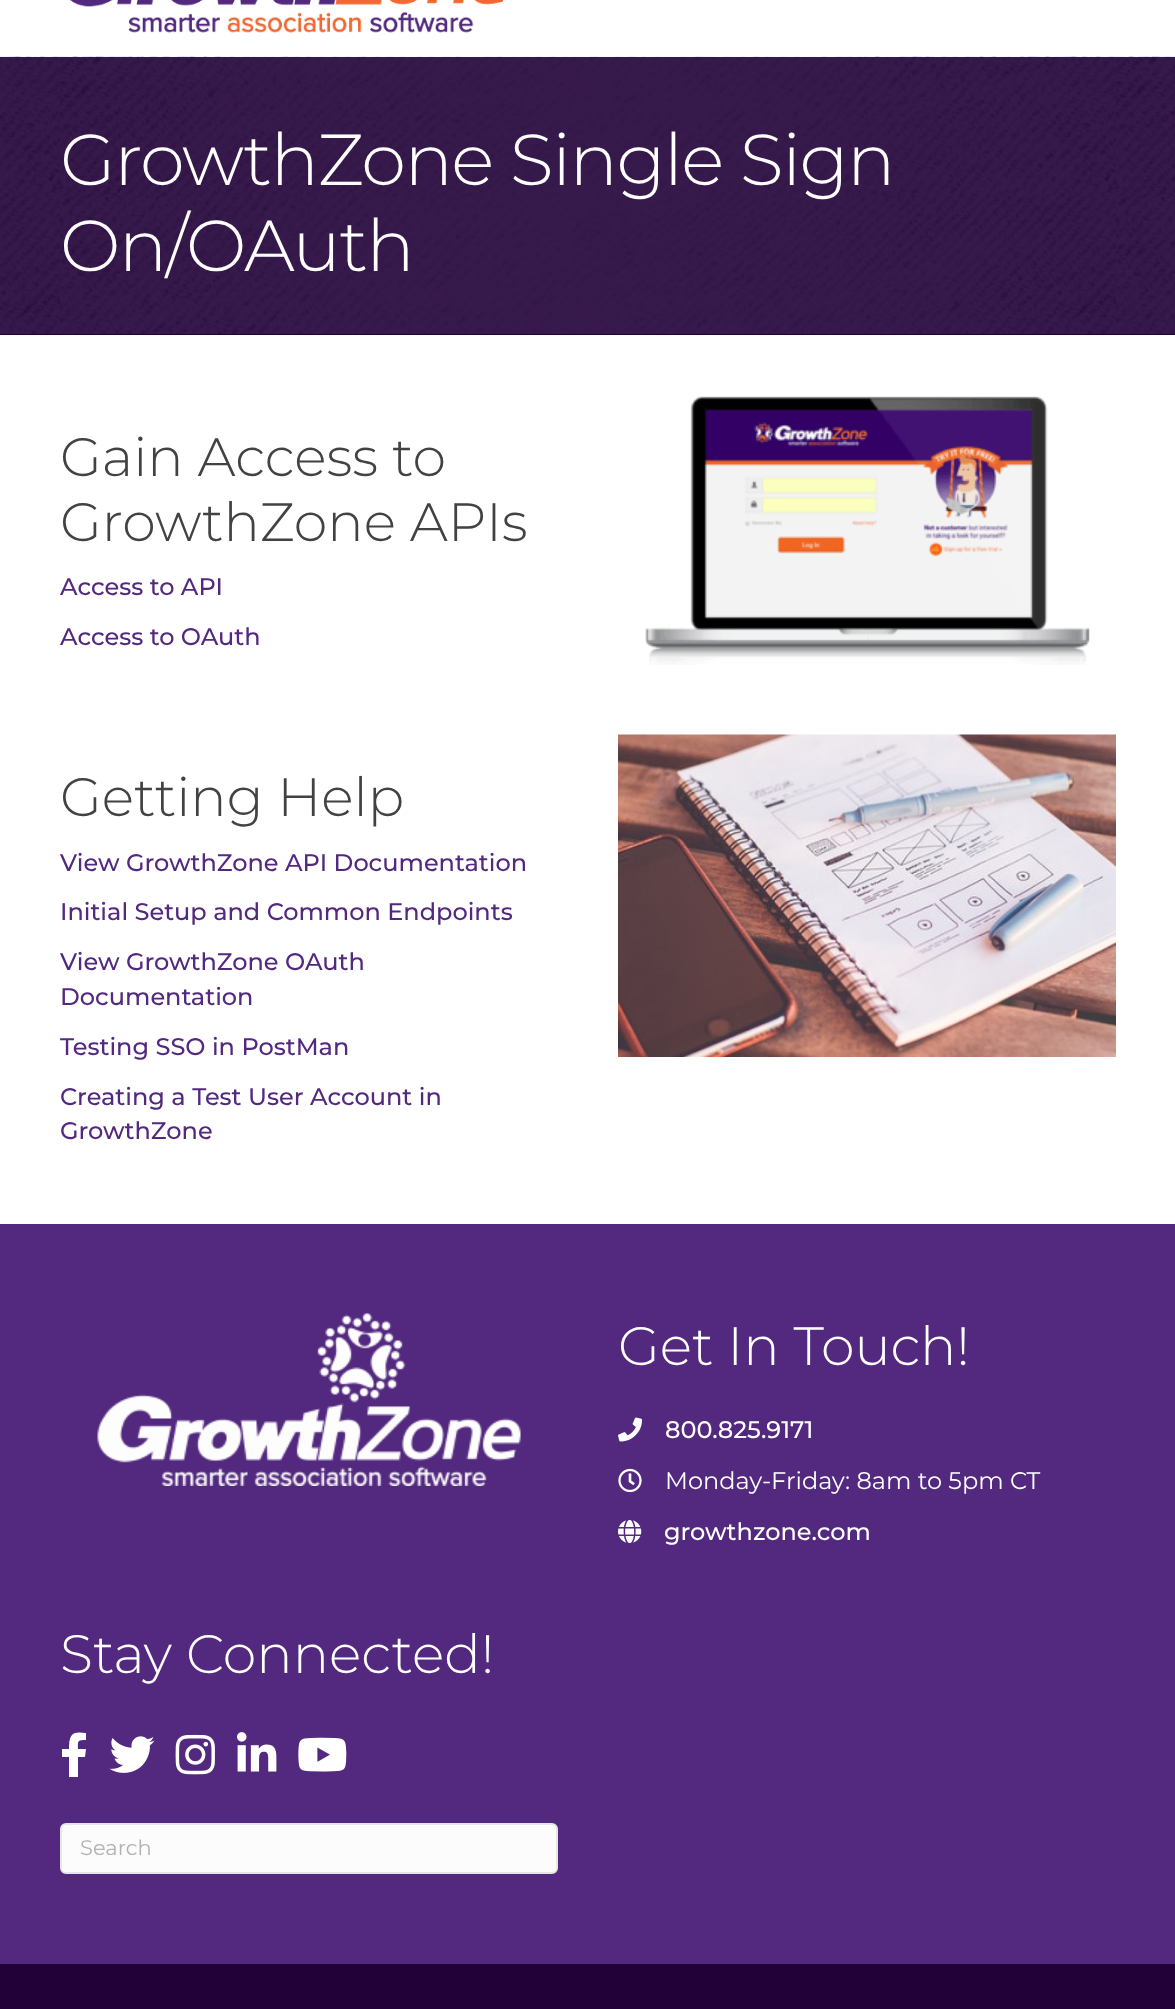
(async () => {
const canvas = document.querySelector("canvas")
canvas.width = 1175
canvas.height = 2009
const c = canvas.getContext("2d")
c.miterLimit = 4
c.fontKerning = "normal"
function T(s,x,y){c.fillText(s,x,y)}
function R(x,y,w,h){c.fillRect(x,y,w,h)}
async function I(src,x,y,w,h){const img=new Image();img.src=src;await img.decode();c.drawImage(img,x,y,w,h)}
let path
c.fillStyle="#fff"
R(0,0,1175,2009)
await I("1.png",69,0,434,33)
c.fillStyle="#210138"
R(0,334,1175,1)
await I("2.png",0,56,1175,278)
c.letterSpacing="-1.5px"
c.font="300 72px Montserrat"
c.fillStyle="#fff"
T("GrowthZone Single Sign",60,185)
T("On/OAuth",60,271)
c.letterSpacing="0px"
c.font="300 54px Montserrat"
c.fillStyle="#424242"
T("Gain Access to",60,476)
T("GrowthZone APIs",60,541)
c.font="500 24px Montserrat"
c.fillStyle="#53297f"
T("Access to API",60,595)
T("Access to OAuth",60,645)
await I("3.png",645,396,445,269)
c.font="300 54px Montserrat"
c.fillStyle="#424242"
T("Getting Help",60,816)
c.font="500 24px Montserrat"
c.fillStyle="#53297f"
T("View GrowthZone API Documentation",60,871)
T("Initial Setup and Common Endpoints",60,920)
T("View GrowthZone OAuth",60,970)
T("Documentation",60,1005)
T("Testing SSO in PostMan",60,1055)
T("Creating a Test User Account in",60,1105)
T("GrowthZone",60,1139)
await I("4.png",618,734,498,323)
R(0,1224,1175,740)
await I("5.png",97,1313,424,173)
c.font="300 54px Montserrat"
c.fillStyle="#fff"
T("Get In Touch!",618,1365)
await I("6.png",618,1417,24,25)
c.font="500 24px Montserrat"
T("800.825.9171",665,1438)
await I("7.png",618,1468,24,25)
c.font="24px Montserrat"
T("Monday-Friday: 8am to 5pm CT",665,1489)
await I("8.png",618,1519,24,25)
c.font="500 24px Montserrat"
T("growthzone.com",664,1540)
c.font="300 54px Montserrat"
T("Stay Connected!",60,1673)
path = new Path2D("M85 1757h-7v20h-9v-20h-7v-8h7c0-15 3-18 17-16v7c-9 0-8 1-8 9h8z")
c.fill(path)
await I("9.png",109,1736,46,37)
await I("10.png",175,1734,40,41)
await I("11.png",237,1732,40,40)
await I("12.png",298,1737,49,35)
c.fillStyle="#fcfcfc"
c.beginPath()
c.roundRect(61,1824,496,49,5)
c.fill()
c.strokeStyle="#e6e6e6"
c.lineWidth=2
c.stroke()
c.font="21px Montserrat"
c.fillStyle="#b2b2b2"
T("Search",80,1855)
c.fillStyle="#210138"
R(0,1964,1175,45)
})()
